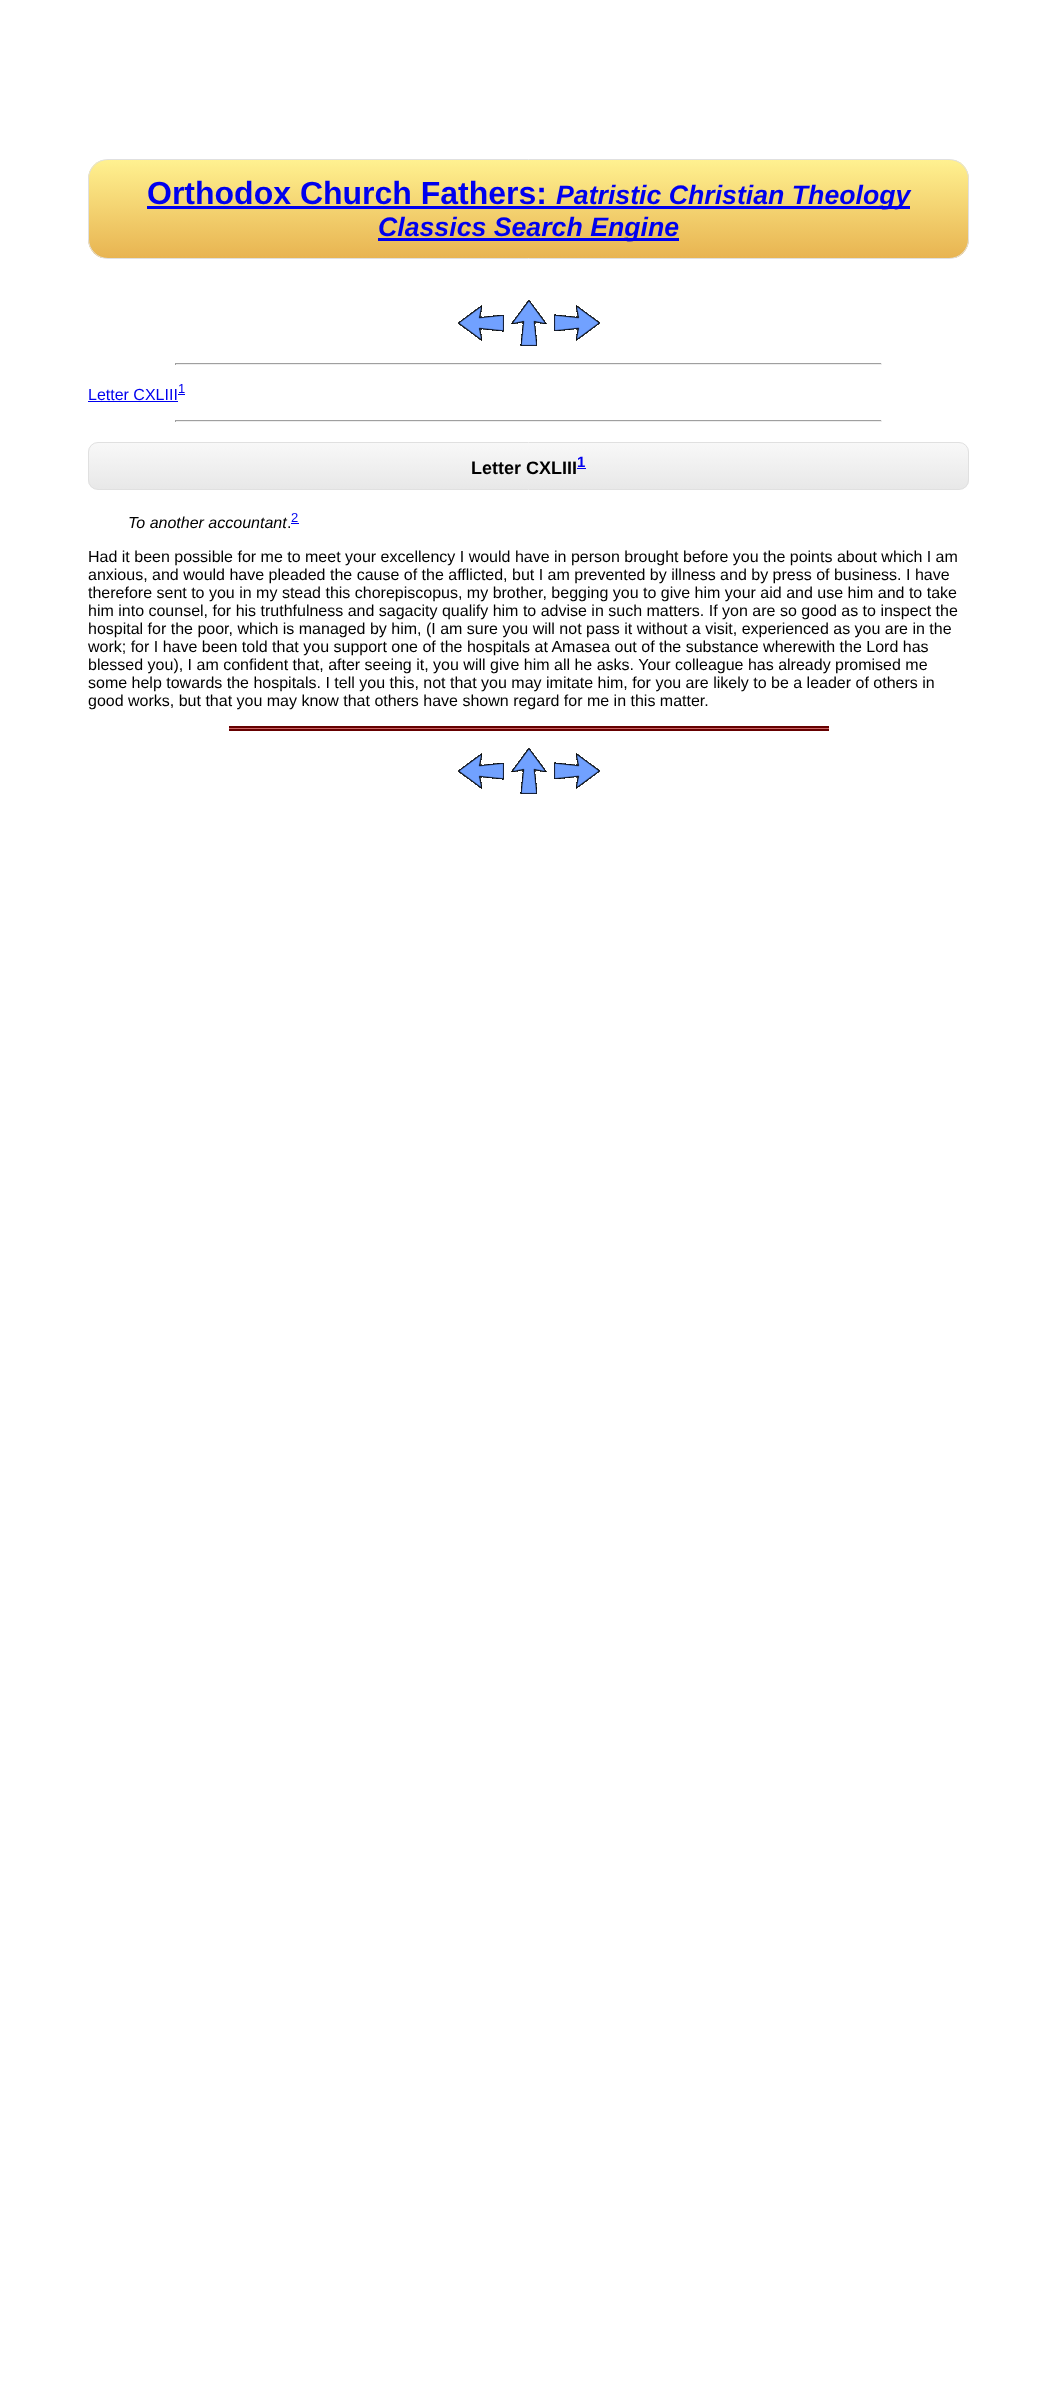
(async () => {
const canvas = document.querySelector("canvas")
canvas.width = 1057
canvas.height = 2381
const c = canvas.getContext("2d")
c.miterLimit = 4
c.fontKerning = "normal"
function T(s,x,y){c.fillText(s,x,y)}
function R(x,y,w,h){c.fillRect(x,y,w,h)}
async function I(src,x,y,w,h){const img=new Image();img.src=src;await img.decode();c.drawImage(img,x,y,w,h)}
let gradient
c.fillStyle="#fff"
R(0,0,1057,2381)
c.save()
c.beginPath()
c.roundRect(88,159,881,100,20)
c.clip()
gradient = c.createLinearGradient(529,160,529,258)
gradient.addColorStop(0,"#fff190")
gradient.addColorStop(1,"#e8b451")
c.fillStyle = gradient
R(88,160,881,98)
c.restore()
c.beginPath()
c.roundRect(88.5,159.5,880,99,19.5)
c.strokeStyle="#e0e0e0"
c.stroke()
c.font="bold 32px Liberation Sans"
c.fillStyle="#00e"
T("Orthodox Church Fathers:",147,204)
R(147,206,763,3)
c.font="italic bold 26.7px Liberation Sans"
T("Patristic Christian Theology",556,204)
R(378,238,301,3)
T("Classics Search Engine",378,236)
await I("1.png",458,305,46,36)
await I("2.png",511,300,36,46)
await I("3.png",554,305,46,36)
c.fillStyle="#9f9f9f"
R(175,363,707,1)
c.fillStyle="#eee"
R(881,363,1,2)
R(175,364,707,1)
c.fillStyle="#9f9f9f"
R(175,363,1,2)
c.font="16px Liberation Sans"
c.fillStyle="#00e"
T("Letter CXLIII",88,400)
R(88,401,90,1)
R(178,394,7,1)
c.font="13px Liberation Sans"
T("1",178,393)
c.fillStyle="#9f9f9f"
R(175,420,707,1)
c.fillStyle="#eee"
R(881,420,1,2)
R(175,421,707,1)
c.fillStyle="#9f9f9f"
R(175,420,1,2)
c.save()
c.beginPath()
c.roundRect(88,442,881,48,10)
c.clip()
gradient = c.createLinearGradient(529,443,529,489)
gradient.addColorStop(0,"#f8f8f8")
gradient.addColorStop(1,"#e8e8e8")
c.fillStyle = gradient
R(88,443,881,46)
c.restore()
c.beginPath()
c.roundRect(88.5,442.5,880,47,9.5)
c.stroke()
c.font="bold 18px Liberation Sans"
c.fillStyle="#000"
T("Letter CXLIII",471,474)
c.fillStyle="#00e"
R(577,468,9,1)
c.font="bold 15px Liberation Sans"
T("1",577,467)
c.font="italic 16px Liberation Sans"
c.fillStyle="#000"
T("To another accountant",128,528)
c.font="16px Liberation Sans"
T(".",287,528)
c.font="13px Liberation Sans"
c.fillStyle="#00e"
T("2",291,522)
R(291,523,8,1)
c.font="16px Liberation Sans"
c.fillStyle="#000"
T("Had it been possible for me to meet your excellency I would have in person brought before you the points about which I am",88,562)
T("anxious, and would have pleaded the cause of the afflicted, but I am prevented by illness and by press of business. I have",88,580)
T("therefore sent to you in my stead this chorepiscopus, my brother, begging you to give him your aid and use him and to take",88,598)
T("him into counsel, for his truthfulness and sagacity qualify him to advise in such matters. If yon are so good as to inspect the",88,616)
T("hospital for the poor, which is managed by him, (I am sure you will not pass it without a visit, experienced as you are in the",88,634)
T("work; for I have been told that you support one of the hospitals at Amasea out of the substance wherewith the Lord has",88,652)
T("blessed you), I am confident that, after seeing it, you will give him all he asks. Your colleague has already promised me",88,670)
T("some help towards the hospitals. I tell you this, not that you may imitate him, for you are likely to be a leader of others in",88,688)
T("good works, but that you may know that others have shown regard for me in this matter.",88,706)
await I("4.png",229,726,600,5)
await I("1.png",458,753,46,36)
await I("2.png",511,748,36,46)
await I("3.png",554,753,46,36)
})()
